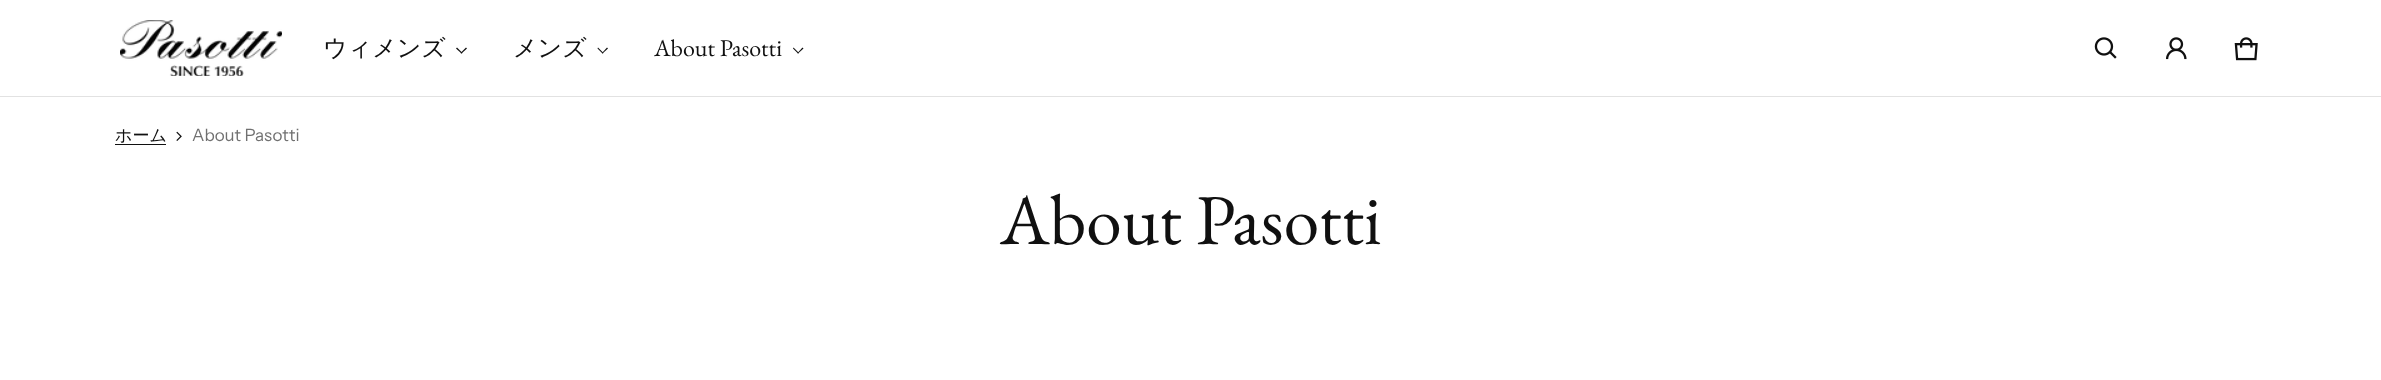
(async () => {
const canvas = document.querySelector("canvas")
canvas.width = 2381
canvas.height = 380
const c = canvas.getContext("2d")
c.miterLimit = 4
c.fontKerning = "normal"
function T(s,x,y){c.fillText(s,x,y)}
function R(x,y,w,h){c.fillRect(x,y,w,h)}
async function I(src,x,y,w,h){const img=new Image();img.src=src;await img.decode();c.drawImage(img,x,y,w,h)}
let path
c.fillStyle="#fff"
R(0,0,2381,380)
c.fillStyle="#e2e2e2"
R(0,96,2381,1)
await I("1.png",120,20,162,56)
c.font="500 24px WenQuanYi Zen Hei"
c.fillStyle="#101010"
T("ウィメンズ",323,56)
path = new Path2D("M457 47.5l5.5 5.5l-1 .5l-5.5-5z")
c.fill(path)
path = new Path2D("M460.5 53l5.5-5.5l1 1l-5.5 5z")
c.fill(path)
T("メンズ",513,56)
path = new Path2D("M598 47.5l5.5 5.5l-1 .5l-5-5z")
c.fill(path)
path = new Path2D("M602 53l5-5.5l1 1l-5.5 5z")
c.fill(path)
c.font="24px EB Garamond"
T("About Pasotti",654,56)
path = new Path2D("M793.5 47.5l5.5 5.5l-1 .5l-5-5z")
c.fill(path)
path = new Path2D("M797.5 53l5-5.5l1 1l-5.5 5z")
c.fill(path)
await I("2.png",2094,37,23,22)
await I("3.png",2166,37,21,23)
await I("4.png",2234,37,24,24)
c.font="500 17px WenQuanYi Zen Hei"
T("ホーム",115,141)
R(115,144,51,1)
await I("5.png",176,131,6,10)
c.font="17px Instrument Sans"
c.fillStyle="#707070"
T("About Pasotti",192,141)
c.font="71.5px EB Garamond"
c.fillStyle="#101010"
T("About Pasotti",1000,244)
})()
